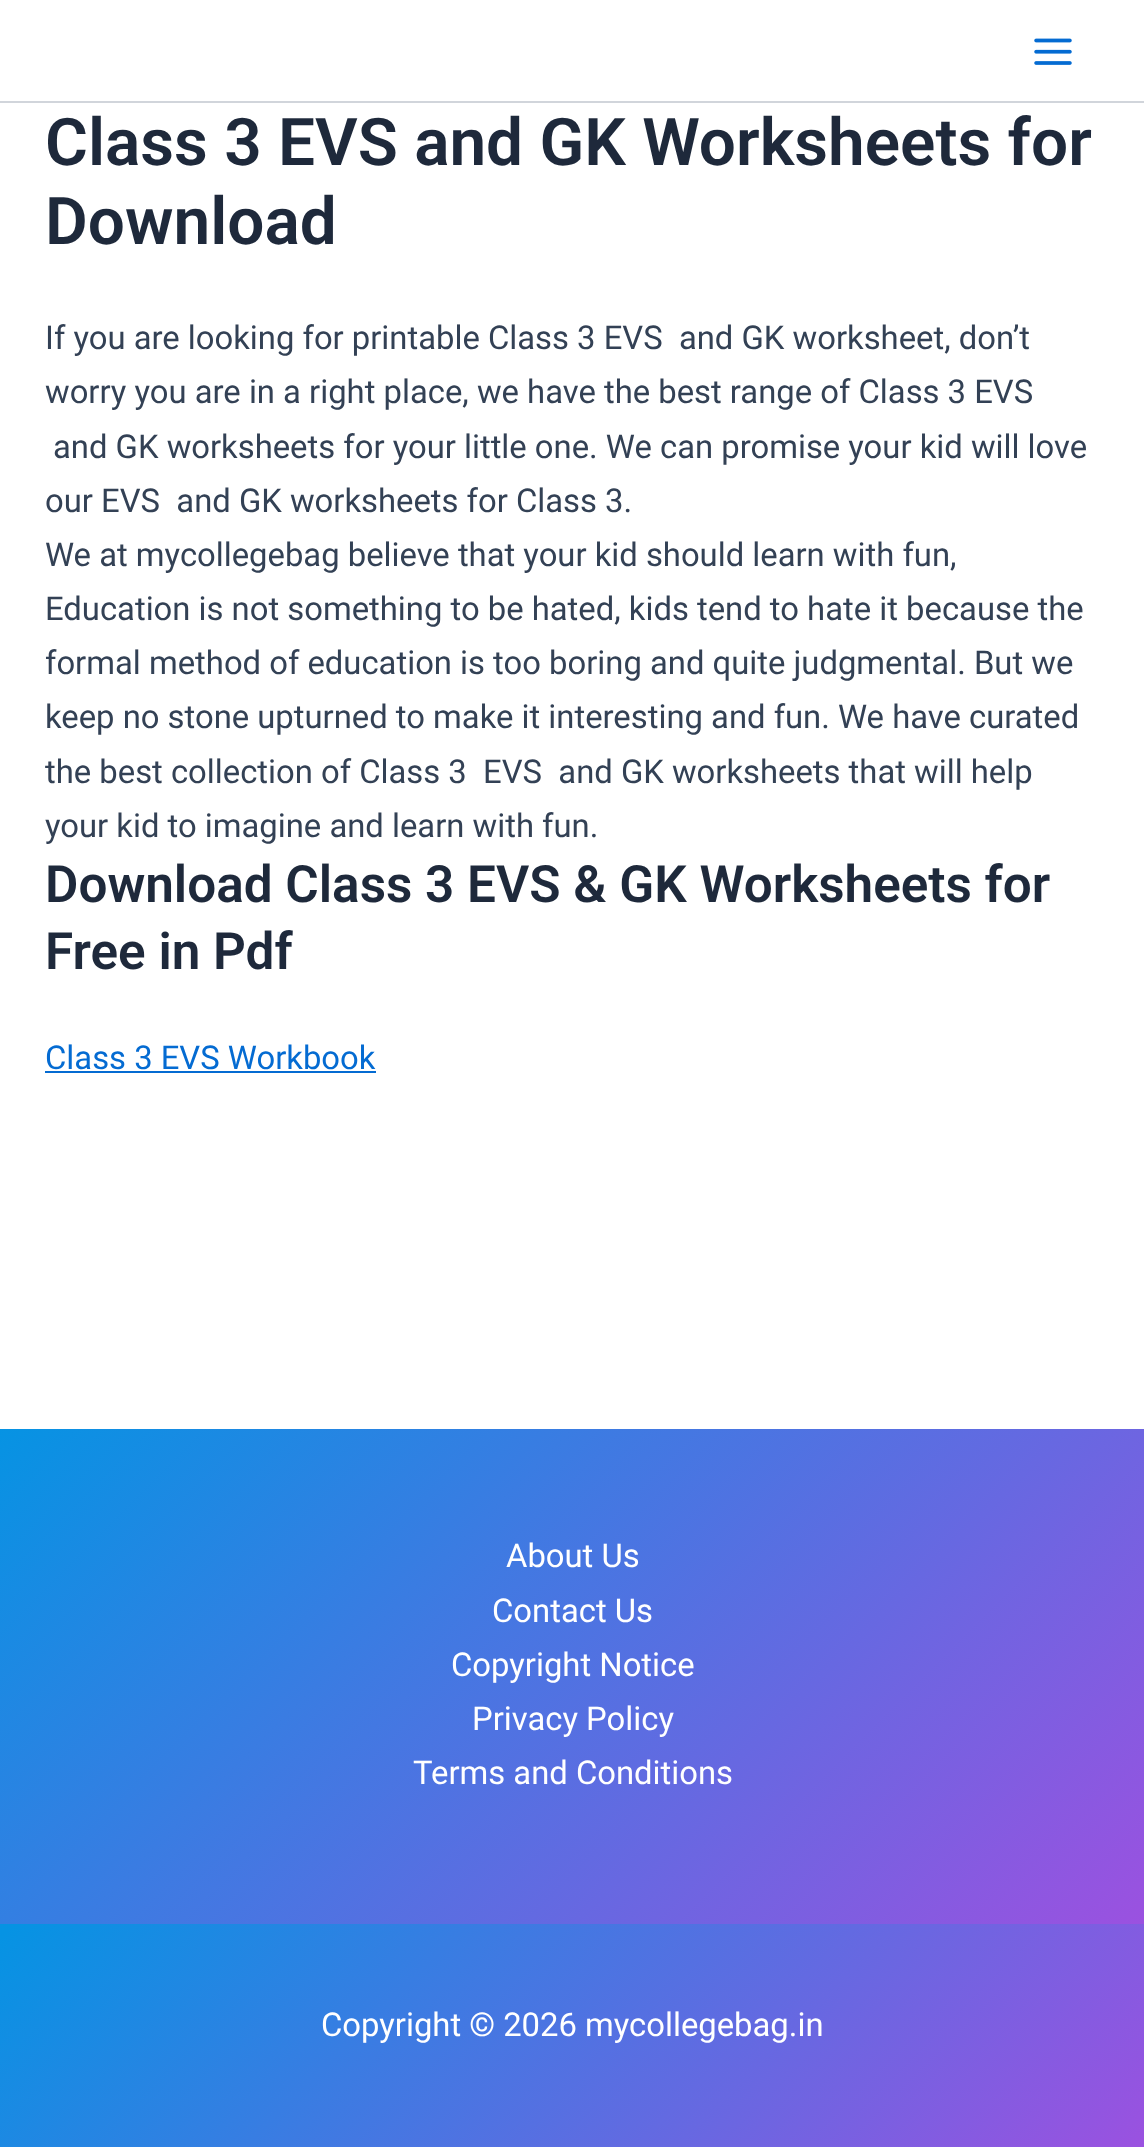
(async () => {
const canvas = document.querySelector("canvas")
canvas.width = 1144
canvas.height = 2147
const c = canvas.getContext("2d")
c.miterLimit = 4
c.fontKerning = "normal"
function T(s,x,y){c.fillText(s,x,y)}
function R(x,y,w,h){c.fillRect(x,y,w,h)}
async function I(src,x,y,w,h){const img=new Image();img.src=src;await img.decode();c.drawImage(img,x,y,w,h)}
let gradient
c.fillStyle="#fff"
R(0,0,1144,2147)
c.fillStyle="#d1d5db"
R(0,101,1144,2)
await I("1.png",1034,38,38,27)
c.font="600 65.7px Roboto"
c.fillStyle="#1e293b"
T("Class 3 EVS and GK Worksheets for",45,165)
T("Download",45,244)
c.font="32.8px Roboto"
c.fillStyle="#334155"
T("If you are looking for printable Class 3 EVS  and GK worksheet, don’t",45,349)
T("worry you are in a right place, we have the best range of Class 3 EVS",45,403)
T("and GK worksheets for your little one. We can promise your kid will love",53,458)
T("our EVS  and GK worksheets for Class 3.",45,512)
T("We at mycollegebag believe that your kid should learn with fun,",45,566)
T("Education is not something to be hated, kids tend to hate it because the",45,620)
T("formal method of education is too boring and quite judgmental. But we",45,674)
T("keep no stone upturned to make it interesting and fun. We have curated",45,728)
T("the best collection of Class 3  EVS  and GK worksheets that will help",45,783)
T("your kid to imagine and learn with fun.",45,837)
c.font="600 51.25px Roboto"
c.fillStyle="#1e293b"
T("Download Class 3 EVS & GK Worksheets for",45,902)
T("Free in Pdf",45,969)
c.font="32.8px Roboto"
c.fillStyle="#046bd2"
T("Class 3 EVS Workbook",45,1069)
R(45,1071,331,2)
gradient = c.createLinearGradient(163,1266,983,2086)
gradient.addColorStop(0,"#0693e3")
gradient.addColorStop(1,"#9b51e0")
c.fillStyle = gradient
R(0,1429,1144,495)
c.fillStyle="#fff"
T("About Us",506,1567)
T("Contact Us",492,1622)
T("Copyright Notice",451,1676)
T("Privacy Policy",472,1730)
T("Terms and Conditions",413,1784)
gradient = c.createLinearGradient(230,1694,915,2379)
gradient.addColorStop(.01,"#0693e3")
gradient.addColorStop(1,"#9b51e0")
c.fillStyle = gradient
R(0,1924,1144,223)
c.fillStyle="#fff"
T("Copyright © 2026 mycollegebag.in",321,2036)
})()
